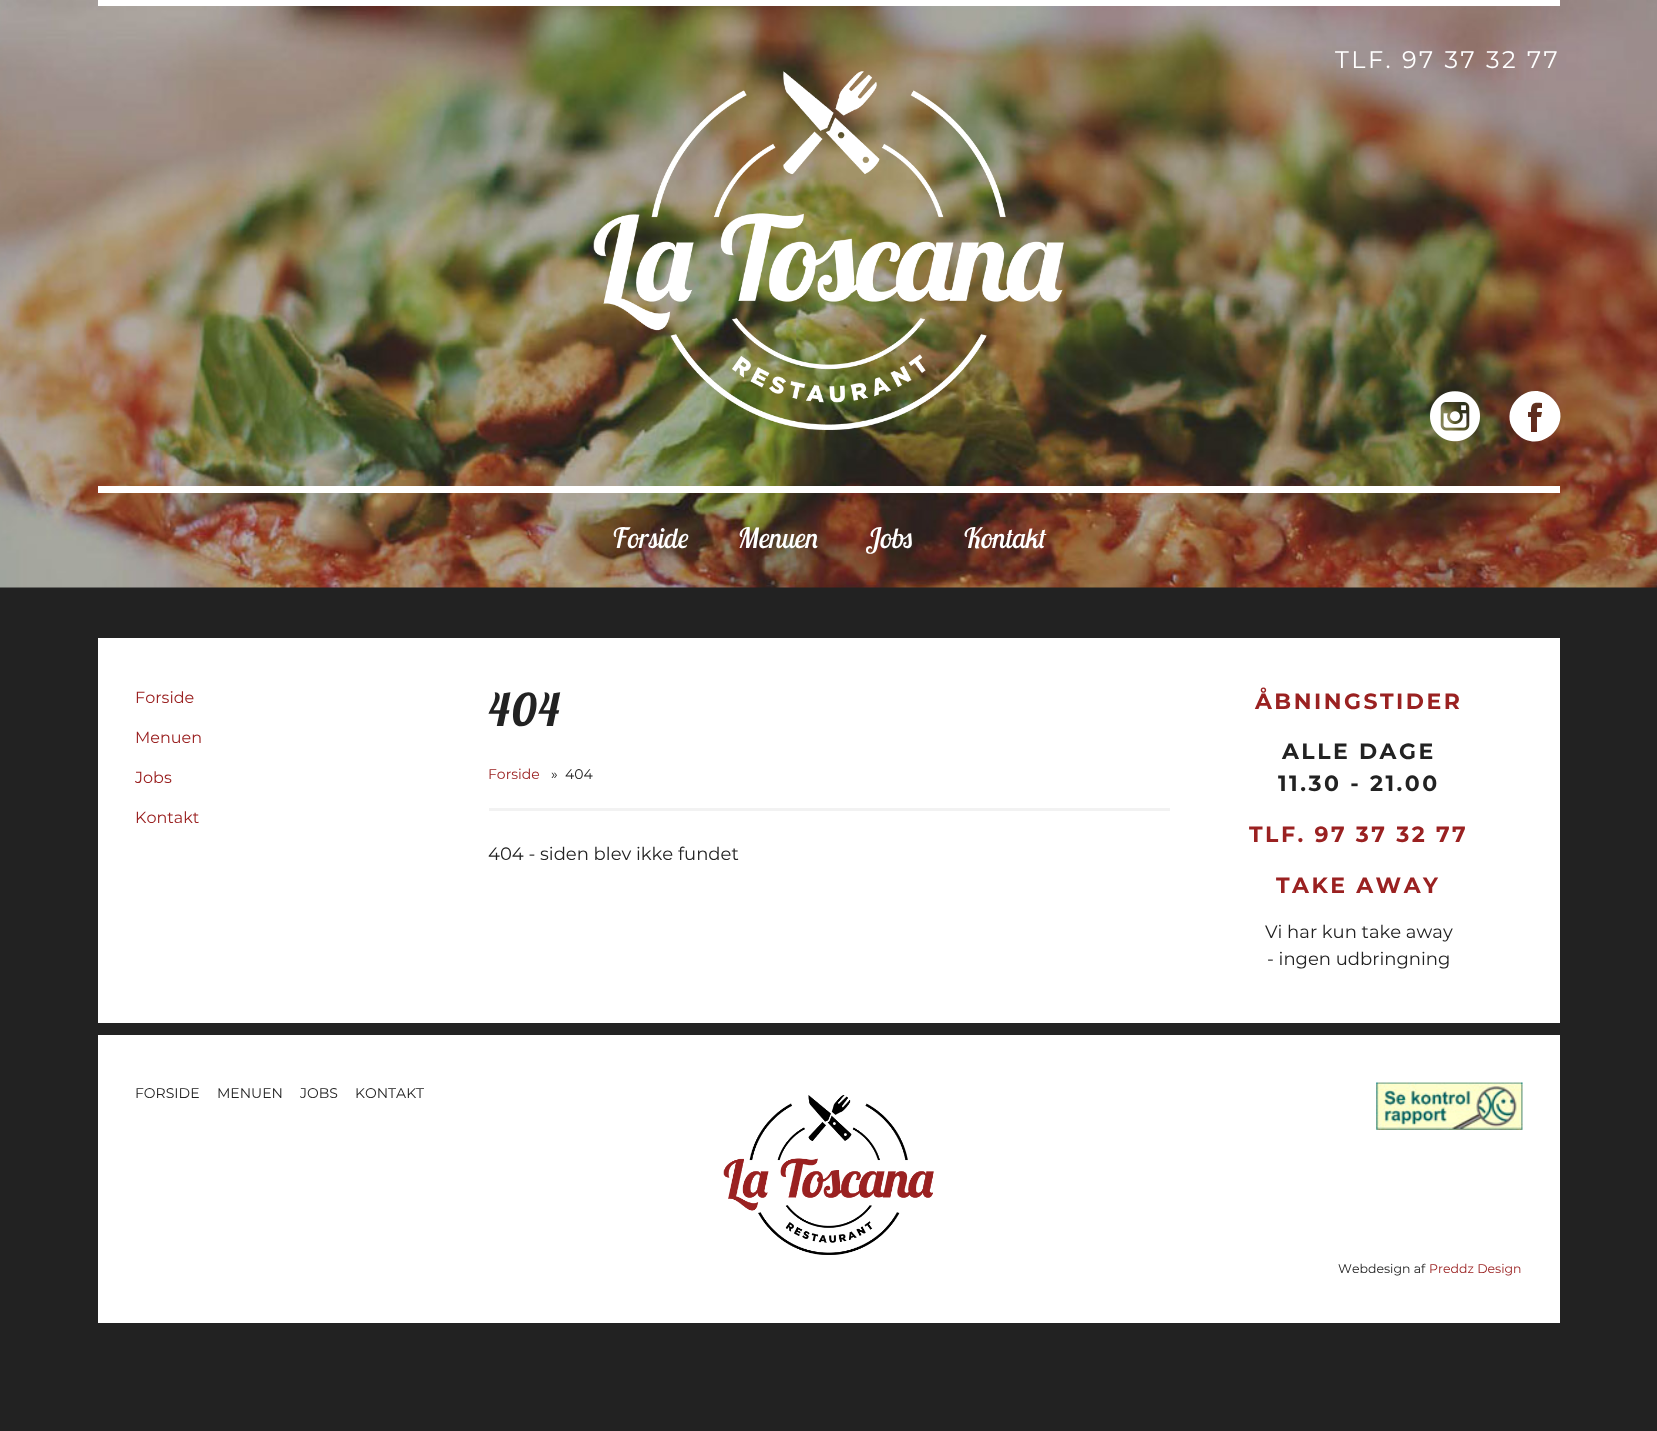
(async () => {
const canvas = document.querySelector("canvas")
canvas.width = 1657
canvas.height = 1431
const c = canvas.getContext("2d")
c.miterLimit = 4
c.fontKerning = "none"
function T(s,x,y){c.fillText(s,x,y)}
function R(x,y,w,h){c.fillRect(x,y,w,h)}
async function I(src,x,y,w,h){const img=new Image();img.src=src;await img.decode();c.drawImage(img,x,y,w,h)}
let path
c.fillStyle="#222"
R(0,0,1657,1431)
await I("1.png",0,0,1657,588)
c.fillStyle="#fff"
R(98,0,1462,6)
c.letterSpacing="2.5px"
c.font="24px Montserrat"
T("TLF. 97 37 32 77",1335,68)
await I("2.png",1430,391,50,51)
path = new Path2D("M1553 399c-24-24-59 12-36 35c24 23 59-12 36-35zm-12 18h-4v15h-6v-15h-3v-5h3c0-9 2-10 11-9v5c-5 0-5-1-5 4h5z")
c.fill(path)
await I("3.png",593,71,471,359)
R(98,486,1462,7)
c.letterSpacing="0px"
c.font="italic 28px Lobster Two"
T("Forside",612,548)
T("Menuen",738,548)
T("Jobs",868,548)
T("Kontakt",963,548)
R(98,638,1462,385)
c.font="16px Montserrat"
c.fillStyle="#9a2121"
T("Forside",135,703)
T("Menuen",135,743)
T("Jobs",135,783)
T("Kontakt",135,823)
c.font="italic bold 45px Lobster Two"
c.fillStyle="#222"
T("404",488,726)
c.font="14px Montserrat"
c.fillStyle="#9a2121"
T("Forside",488,779)
c.fillStyle="#222"
T("»",551,779)
T("404",565,779)
c.fillStyle="#f2f2f2"
R(489,808,681,3)
c.font="18px Montserrat"
c.fillStyle="#222"
T("404 - siden blev ikke fundet",488,860)
c.letterSpacing="2.5px"
c.font="bold 22px Montserrat"
c.fillStyle="#9a2121"
T("ÅBNINGSTIDER",1255,709)
c.fillStyle="#222"
T("ALLE DAGE",1282,759)
T("11.30 - 21.00",1278,791)
c.fillStyle="#9a2121"
T("TLF. 97 37 32 77",1249,842)
T("TAKE AWAY",1276,893)
c.letterSpacing="0px"
c.font="18px Montserrat"
c.fillStyle="#222"
T("Vi har kun take away",1265,938)
T("- ingen udbringning",1267,965)
c.fillStyle="#fff"
R(98,1035,1462,288)
c.font="14px Montserrat"
c.fillStyle="#222"
T("FORSIDE",135,1098)
T("MENUEN",217,1098)
T("JOBS",300,1098)
T("KONTAKT",355,1098)
await I("4.png",723,1095,211,160)
await I("5.png",1376,1082,147,48)
c.font="12.5px Montserrat"
T("Webdesign af",1338,1273)
c.fillStyle="#9a2121"
T("Preddz Design",1429,1273)
})()
